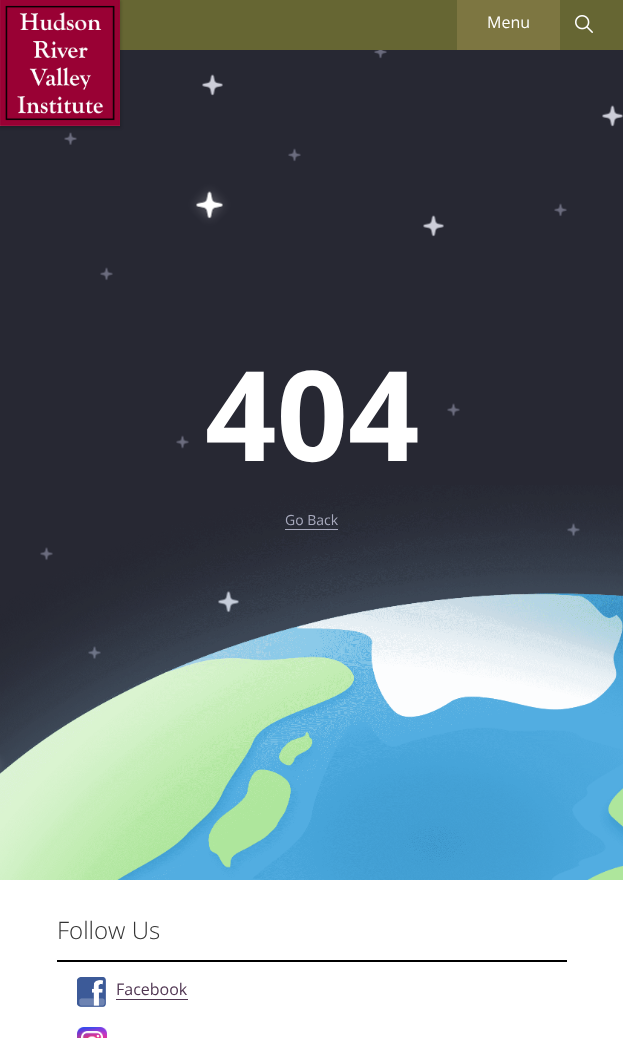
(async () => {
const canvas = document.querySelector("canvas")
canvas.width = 623
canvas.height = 1038
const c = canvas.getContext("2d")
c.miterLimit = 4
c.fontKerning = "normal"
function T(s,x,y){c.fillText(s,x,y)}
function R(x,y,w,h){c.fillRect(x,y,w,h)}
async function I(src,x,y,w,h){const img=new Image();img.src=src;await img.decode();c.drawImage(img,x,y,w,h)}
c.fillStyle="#fff"
R(0,0,623,1038)
c.fillStyle="#663"
R(120,0,503,50)
c.fillStyle="#272833"
R(0,50,623,724)
await I("3.png",0,50,623,724)
c.fillStyle="#00000033"
c.filter="blur(1.5px)"
c.beginPath()
c.rect(-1,0,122,128)
c.fill()
c.filter="none"
await I("1.png",0,0,120,126)
c.fillStyle="#7d7641"
R(457,0,103,50)
c.font="16px Open Sans"
c.fillStyle="#fff"
T("Menu",487,28)
await I("2.png",575,15,18,18)
await I("4.png",0,485,623,395)
c.font="bold 125px Open Sans"
T("404",205,461)
c.font="14px Open Sans"
c.fillStyle="#a7a9bc"
T("Go Back",285,525)
R(285,529,53,1)
c.font="300 24px Open Sans"
c.fillStyle="#333"
T("Follow Us",57,939)
c.fillStyle="#000"
R(57,960,510,2)
await I("5.png",77,977,29,30)
c.font="16px Open Sans"
c.fillStyle="#513753"
T("Facebook",116,995)
R(116,999,72,1)
await I("6.png",77,1027,30,11)
})()
